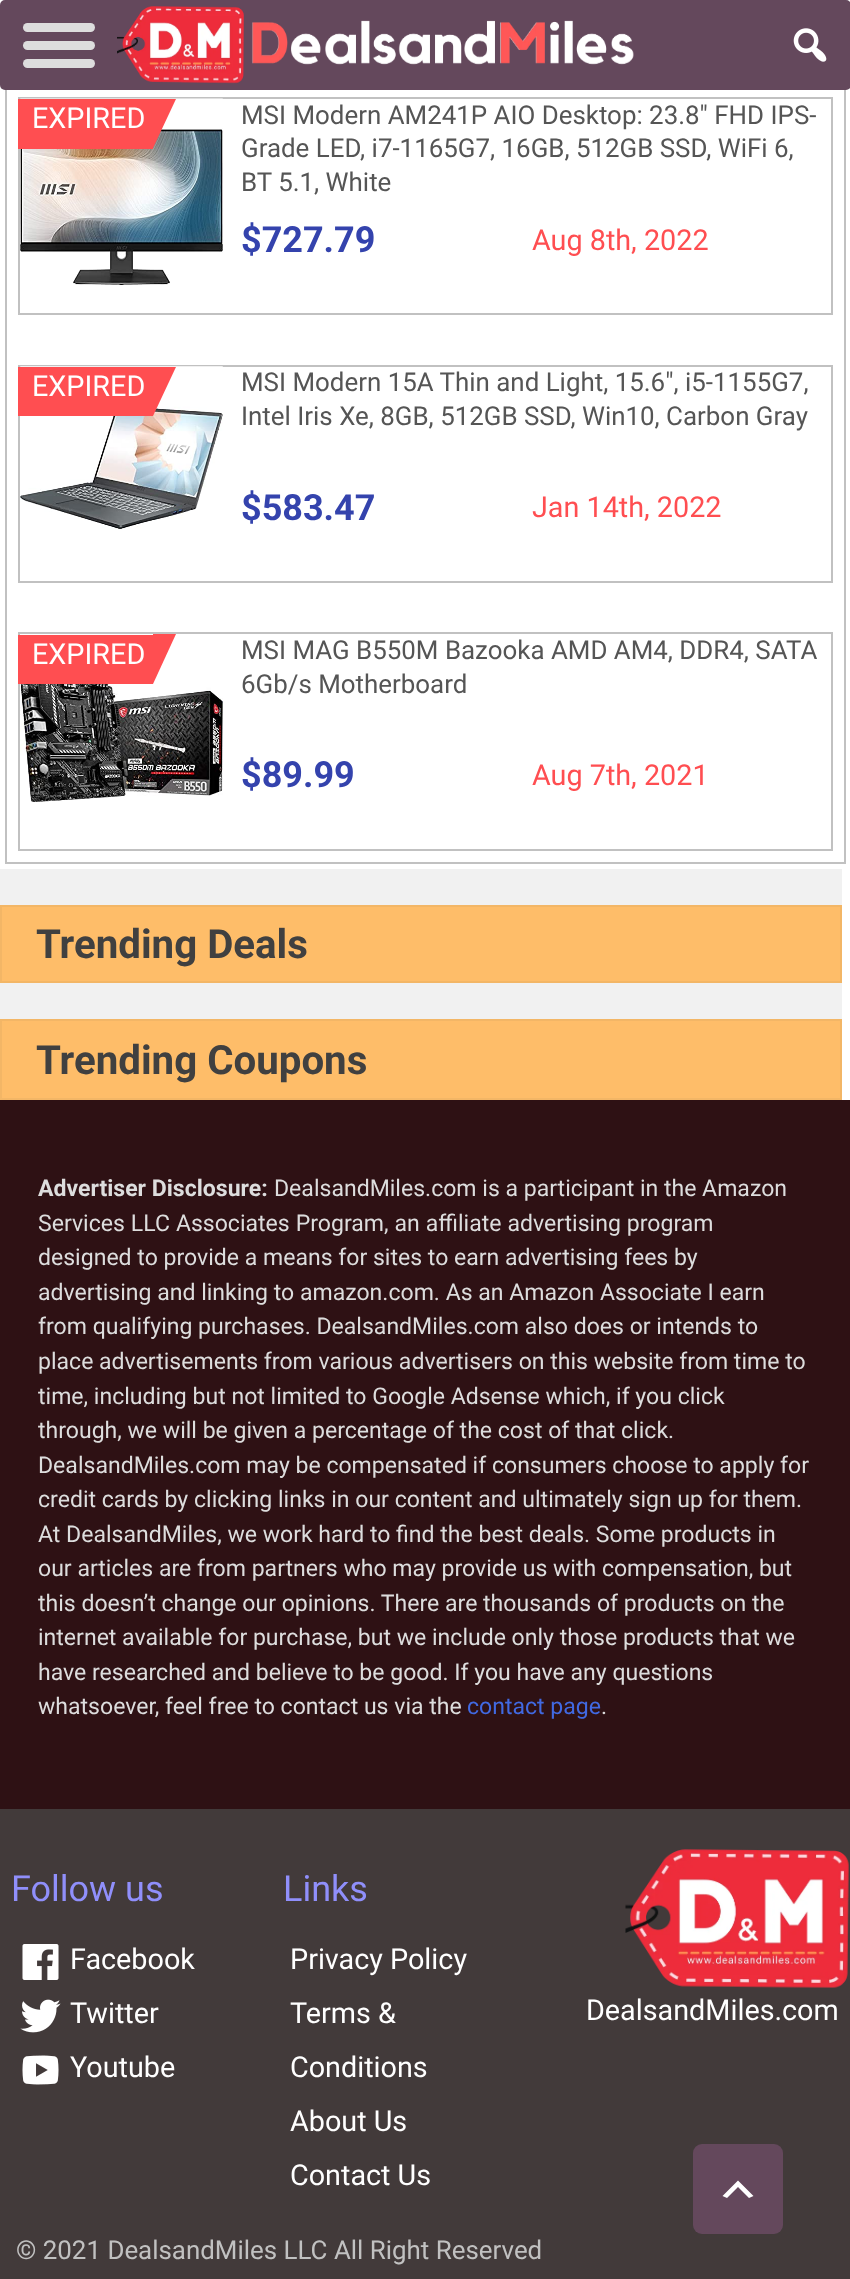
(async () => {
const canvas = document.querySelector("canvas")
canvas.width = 850
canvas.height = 2279
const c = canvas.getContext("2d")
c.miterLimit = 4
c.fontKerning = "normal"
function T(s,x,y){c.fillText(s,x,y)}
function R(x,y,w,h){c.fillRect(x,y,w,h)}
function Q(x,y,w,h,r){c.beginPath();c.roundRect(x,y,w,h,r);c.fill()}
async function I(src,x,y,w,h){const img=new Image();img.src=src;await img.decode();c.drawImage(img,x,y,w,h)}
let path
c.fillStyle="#2e1114"
R(0,0,850,2279)
c.fillStyle="#fff"
R(0,0,850,1100)
c.strokeStyle="#c1c1c1"
c.lineWidth=2
c.strokeRect(6,-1,839,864)
c.fillStyle="#64485c"
Q(0,0,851,90,5)
c.fillStyle="#ddd"
Q(23,23,72,9,4.5)
Q(23,41,72,9,4.5)
Q(23,59,72,9,4.5)
await I("1.png",117,6,517,78)
await I("2.png",793,28,34,34)
c.strokeRect(19,98,813,216)
await I("3.png",20,98,203,187)
c.fillStyle="#ff4e51"
R(18,99,135,50)
c.font="28.75px Roboto"
c.fillStyle="#fff"
T("EXPIRED",32,128)
c.fillStyle="#ff4e51"
path = new Path2D("M153 99h23l-23 49z")
c.fill(path)
c.font="25.9px Roboto"
c.fillStyle="#555"
T("MSI Modern AM241P AIO Desktop: 23.8″ FHD IPS-",241,124)
T("Grade LED, i7-1165G7, 16GB, 512GB SSD, WiFi 6,",241,157)
T("BT 5.1, White",241,191)
c.font="bold 36px Roboto"
c.fillStyle="#3443ad"
T("$727.79",241,252)
c.font="28.75px Roboto"
c.fillStyle="#ff4e51"
T("Aug 8th, 2022",532,250)
c.strokeRect(19,366,813,216)
await I("4.png",20,366,203,163)
R(18,367,135,49)
c.fillStyle="#fff"
T("EXPIRED",32,396)
c.fillStyle="#ff4e51"
path = new Path2D("M153 367h23l-23 49z")
c.fill(path)
c.font="25.9px Roboto"
c.fillStyle="#555"
T("MSI Modern 15A Thin and Light, 15.6″, i5-1155G7,",241,391)
T("Intel Iris Xe, 8GB, 512GB SSD, Win10, Carbon Gray",241,425)
c.font="bold 36px Roboto"
c.fillStyle="#3443ad"
T("$583.47",241,520)
c.font="28.75px Roboto"
c.fillStyle="#ff4e51"
T("Jan 14th, 2022",532,517)
c.strokeRect(19,633,813,217)
await I("5.png",20,668,203,134)
R(18,635,135,49)
c.fillStyle="#fff"
T("EXPIRED",32,664)
c.fillStyle="#ff4e51"
path = new Path2D("M153 634h23l-23 50z")
c.fill(path)
c.font="25.9px Roboto"
c.fillStyle="#555"
T("MSI MAG B550M Bazooka AMD AM4, DDR4, SATA",241,659)
T("6Gb/s Motherboard",241,693)
c.font="bold 36px Roboto"
c.fillStyle="#3443ad"
T("$89.99",241,787)
c.font="28.75px Roboto"
c.fillStyle="#ff4e51"
T("Aug 7th, 2021",532,785)
c.fillStyle="#f1f1f1"
R(0,869,842,150)
c.fillStyle="#febd69"
c.beginPath()
c.rect(1,906,840,76)
c.fill()
c.strokeStyle="#f3b666"
c.stroke()
c.font="bold 40.25px Roboto"
c.fillStyle="#404040"
T("Trending Deals",36,958)
c.fillStyle="#febd69"
c.beginPath()
c.rect(1,1020,840,79)
c.fill()
c.stroke()
c.fillStyle="#404040"
T("Trending Coupons",36,1074)
c.font="bold 23.05px Roboto"
c.fillStyle="#ddd"
T("Advertiser Disclosure:",38,1196)
c.font="23.05px Roboto"
T("DealsandMiles.com is a participant in the Amazon",274,1196)
c.wordSpacing="0.25px"
T("Services LLC Associates Program, an affiliate advertising program",38,1231)
c.wordSpacing="0px"
T("designed to provide a means for sites to earn advertising fees by",38,1265)
T("advertising and linking to amazon.com. As an Amazon Associate I earn",38,1300)
T("from qualifying purchases. DealsandMiles.com also does or intends to",38,1334)
T("place advertisements from various advertisers on this website from time to",38,1369)
T("time, including but not limited to Google Adsense which, if you click",38,1404)
T("through, we will be given a percentage of the cost of that click.",38,1438)
T("DealsandMiles.com may be compensated if consumers choose to apply for",38,1473)
T("credit cards by clicking links in our content and ultimately sign up for them.",38,1507)
T("At DealsandMiles, we work hard to find the best deals. Some products in",38,1542)
T("our articles are from partners who may provide us with compensation, but",38,1576)
T("this doesn’t change our opinions. There are thousands of products on the",38,1611)
T("internet available for purchase, but we include only those products that we",38,1645)
T("have researched and believe to be good. If you have any questions",38,1680)
T("whatsoever, feel free to contact us via the",38,1714)
c.fillStyle="#4169e1"
T("contact page",467,1714)
c.fillStyle="#ddd"
T(".",601,1714)
c.fillStyle="#423a3a"
R(0,1809,850,470)
c.font="36px Roboto"
c.fillStyle="#908ffb"
T("Follow us",11,1901)
await I("6.png",22,1944,37,36)
c.font="28.75px Roboto"
c.fillStyle="#fff"
T("Facebook",70,1969)
await I("7.png",20,1999,41,34)
T("Twitter",70,2023)
await I("8.png",22,2055,37,30)
T("Youtube",70,2077)
c.font="36px Roboto"
c.fillStyle="#908ffb"
T("Links",283,1901)
c.font="28.75px Roboto"
c.fillStyle="#fff"
T("Privacy Policy",290,1969)
T("Terms &",290,2023)
T("Conditions",290,2077)
T("About Us",290,2131)
T("Contact Us",290,2185)
await I("9.png",625,1849,224,139)
T("DealsandMiles.com",586,2020)
c.font="25.9px Roboto"
c.fillStyle="#c1c1c1"
T("© 2021 DealsandMiles LLC All Right Reserved",16,2259)
c.fillStyle="#64485c"
Q(693,2144,90,90,9)
c.fillStyle="#fff"
path = new Path2D("M749 2198l-11-11l-11 11l-4.5-2l15.5-15.5l15.5 15.5z")
c.fill(path)
})()
